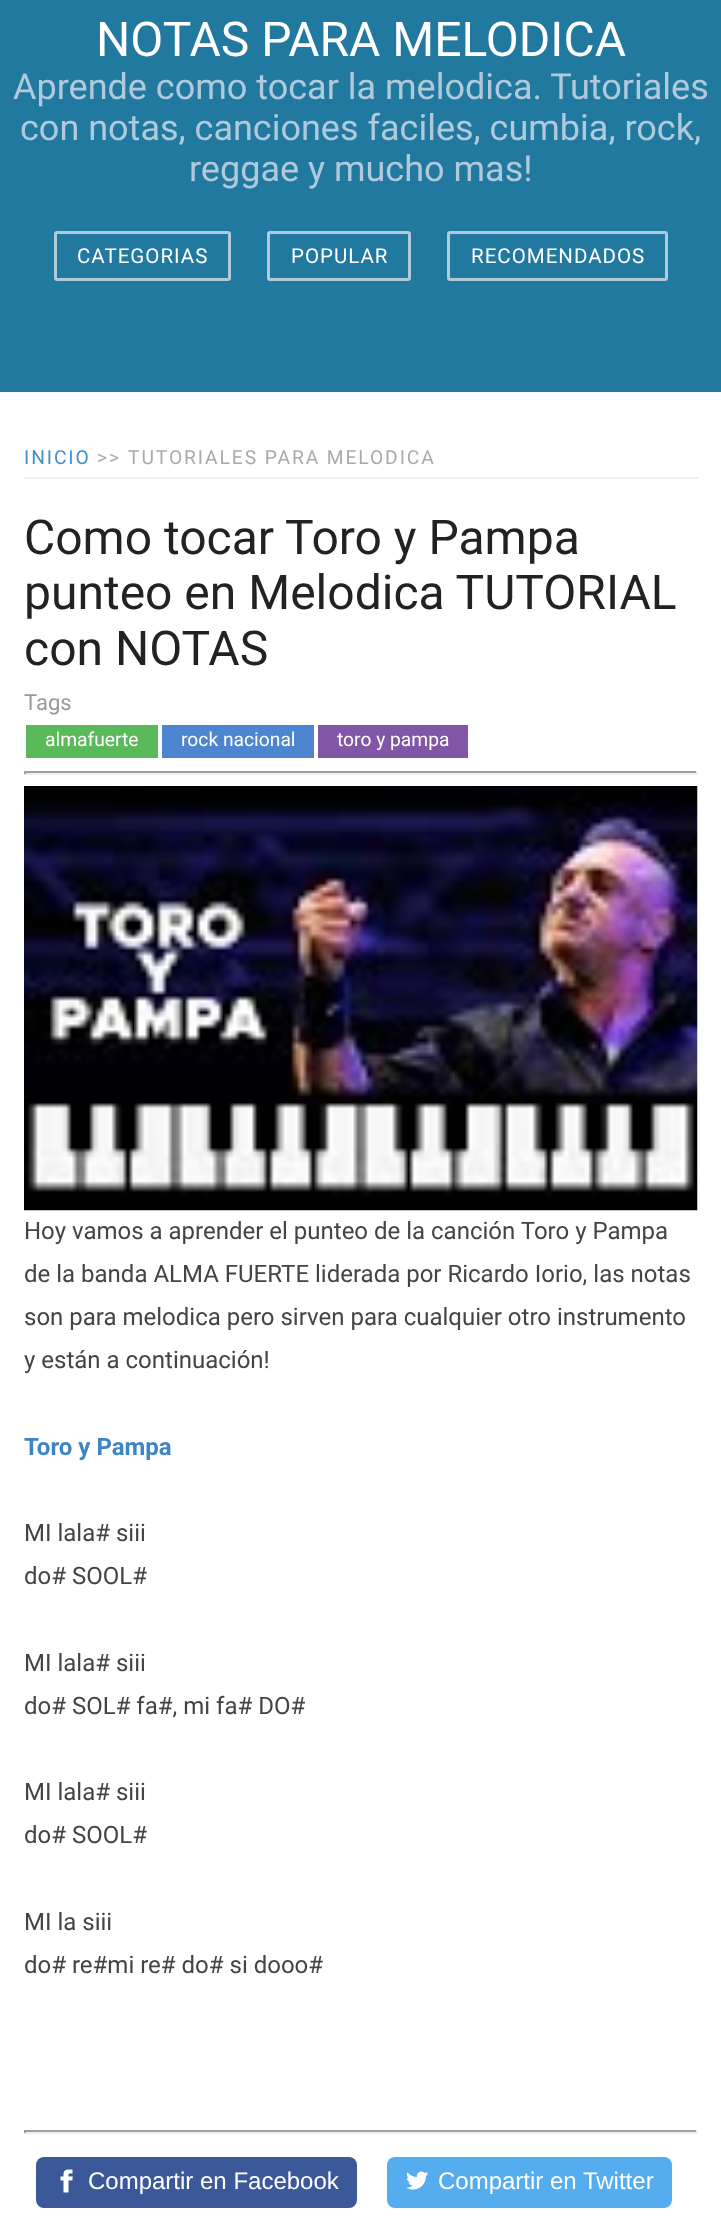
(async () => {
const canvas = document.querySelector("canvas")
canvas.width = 721
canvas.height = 2227
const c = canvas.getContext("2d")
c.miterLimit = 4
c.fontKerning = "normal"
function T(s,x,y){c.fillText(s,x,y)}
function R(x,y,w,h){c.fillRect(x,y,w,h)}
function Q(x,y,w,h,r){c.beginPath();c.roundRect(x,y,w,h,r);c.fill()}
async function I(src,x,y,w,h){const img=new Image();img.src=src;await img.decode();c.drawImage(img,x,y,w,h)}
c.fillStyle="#fff"
R(0,0,721,2227)
c.fillStyle="#2279a0"
R(0,0,721,392)
c.font="48px Roboto"
c.fillStyle="#fff"
T("NOTAS PARA MELODICA",96,56)
c.font="36px Roboto"
c.fillStyle="#b0cadb"
T("Aprende como tocar la melodica. Tutoriales",13,99)
T("con notas, canciones faciles, cumbia, rock,",20,140)
T("reggae y mucho mas!",189,181)
c.beginPath()
c.roundRect(55.5,232.5,174,47,1.5)
c.strokeStyle="#b0cadb"
c.lineWidth=3
c.stroke()
c.letterSpacing="1px"
c.font="20.5px Roboto"
c.fillStyle="#fff"
T("CATEGORIAS",77,263)
c.beginPath()
c.roundRect(268.5,232.5,141,47,1.5)
c.stroke()
T("POPULAR",291,263)
c.beginPath()
c.roundRect(448.5,232.5,218,47,1.5)
c.stroke()
T("RECOMENDADOS",471,263)
c.fillStyle="#eee"
R(24,477,674,2)
c.letterSpacing="1.9px"
c.font="19.25px Roboto"
c.fillStyle="#3d92c9"
T("INICIO",24,464)
c.fillStyle="#aaa"
T(">>",97,464)
T("TUTORIALES PARA MELODICA",128,464)
c.letterSpacing="0px"
c.font="48px Roboto"
c.fillStyle="#222"
T("Como tocar Toro y Pampa",24,554)
T("punteo en Melodica TUTORIAL",24,609)
T("con NOTAS",24,665)
c.font="22px Roboto"
c.fillStyle="#999"
T("Tags",24,710)
c.fillStyle="#5aba59"
R(26,725,132,33)
c.font="19.25px Roboto"
c.fillStyle="#fff"
T("almafuerte",45,746)
c.fillStyle="#4d85d1"
R(162,725,152,33)
c.fillStyle="#fff"
T("rock nacional",181,746)
c.fillStyle="#8156a7"
R(318,725,150,33)
c.fillStyle="#fff"
T("toro y pampa",337,746)
c.fillStyle="#9f9f9f"
R(24,771,674,2)
c.fillStyle="#eee"
R(696,771,2,3)
R(24,773,674,2)
c.fillStyle="#9f9f9f"
R(24,771,2,3)
await I("1.png",24,786,674,425)
c.font="24px Roboto"
c.fillStyle="#444"
T("Hoy vamos a aprender el punteo de la canción Toro y Pampa",24,1239)
T("de la banda ALMA FUERTE liderada por Ricardo Iorio, las notas",24,1282)
T("son para melodica pero sirven para cualquier otro instrumento",24,1325)
T("y están a continuación!",24,1368)
c.font="bold 24px Roboto"
c.fillStyle="#3d85c6"
T("Toro y Pampa",24,1455)
c.font="24px Roboto"
c.fillStyle="#444"
T("MI lala# siii",24,1541)
T("do# SOOL#",24,1584)
T("MI lala# siii",24,1671)
T("do# SOL# fa#, mi fa# DO#",24,1714)
T("MI lala# siii",24,1800)
T("do# SOOL#",24,1843)
T("MI la siii",24,1930)
T("do# re#mi re# do# si dooo#",24,1973)
c.fillStyle="#9f9f9f"
R(24,2130,674,2)
c.fillStyle="#eee"
R(696,2130,2,3)
R(24,2132,674,2)
c.fillStyle="#9f9f9f"
R(24,2130,2,3)
c.fillStyle="#3b5998"
Q(36,2157,321,51,8)
await I("2.png",60,2169,13,24)
c.font="24px Liberation Sans"
c.fillStyle="#fff"
T("Compartir en Facebook",88,2189)
c.fillStyle="#55acee"
Q(387,2157,285,51,8)
await I("3.png",406,2171,23,19)
c.fillStyle="#fff"
T("Compartir en Twitter",438,2189)
})()
